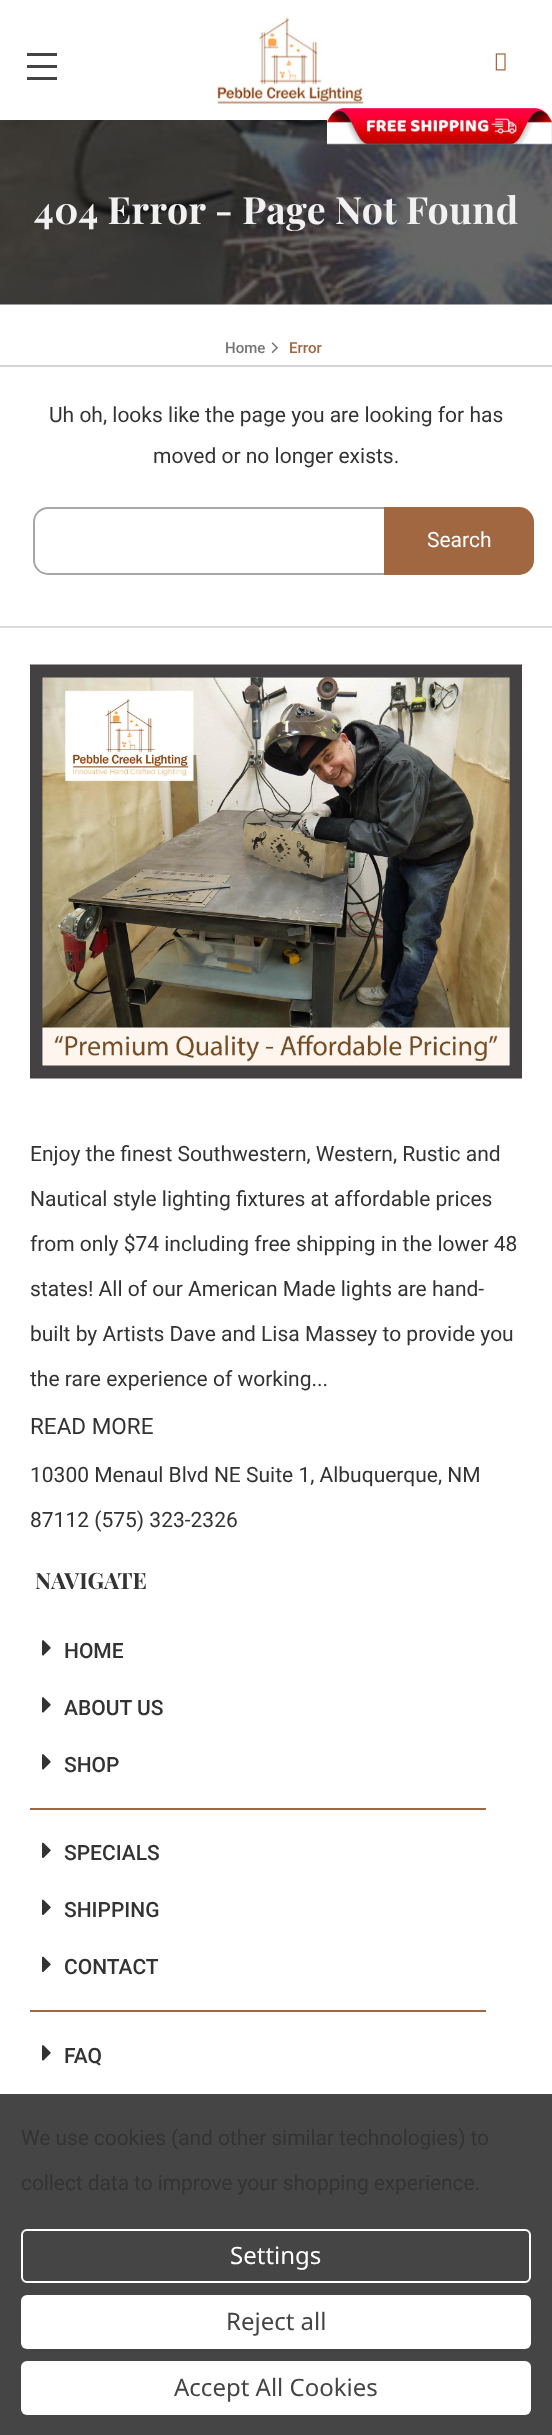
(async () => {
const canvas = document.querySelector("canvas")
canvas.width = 552
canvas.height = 2435
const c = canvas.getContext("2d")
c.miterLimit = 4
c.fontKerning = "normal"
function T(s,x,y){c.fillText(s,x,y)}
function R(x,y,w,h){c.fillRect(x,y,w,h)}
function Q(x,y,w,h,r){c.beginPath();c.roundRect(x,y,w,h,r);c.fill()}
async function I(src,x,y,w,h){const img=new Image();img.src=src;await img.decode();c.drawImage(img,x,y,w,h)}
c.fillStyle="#fff"
R(0,0,552,2435)
c.fillStyle="#444"
R(27,65,30,3)
R(27,53,30,3)
R(27,77,30,3)
await I("1.png",216,15,148,90)
await I("2.png",495,53,11,18)
c.fillStyle="#dcdcdc"
R(0,626,552,2)
await I("4.png",0,120,552,185)
await I("3.png",327,108,225,37)
c.letterSpacing="0.4px"
c.font="bold 37.5px Playfair Display"
c.fillStyle="#f1f1f1"
T("404 Error - Page Not Found",34,224)
c.fillStyle="#d2d4d7"
R(0,365,552,2)
c.letterSpacing="0px"
c.font="500 15px Roboto"
c.fillStyle="#757575"
T("Home",225,353)
await I("5.png",271,342,7,12)
c.fillStyle="#a06741"
T("Error",289,353)
c.font="21px Roboto"
c.fillStyle="#333"
T("Uh oh, looks like the page you are looking for has",49,422)
T("moved or no longer exists.",153,463)
c.beginPath()
c.roundRect(34,508,484,66,[14,0,0,14])
c.strokeStyle="#a7a7a7"
c.lineWidth=2
c.stroke()
c.fillStyle="#a06741"
c.beginPath()
c.roundRect(384,507,150,68,[0,15,15,0])
c.fill()
c.fillStyle="#fff"
T("Search",427,547)
await I("6.png",30,664,492,415)
c.fillStyle="#333"
T("Enjoy the finest Southwestern, Western, Rustic and",30,1161)
T("Nautical style lighting fixtures at affordable prices",30,1206)
T("from only $74 including free shipping in the lower 48",30,1251)
T("states! All of our American Made lights are hand-",30,1296)
T("built by Artists Dave and Lisa Massey to provide you",30,1341)
T("the rare experience of working...",30,1386)
c.font="22.5px Roboto"
T("READ MORE",30,1434)
c.font="21px Roboto"
T("10300 Menaul Blvd NE Suite 1, Albuquerque, NM",30,1482)
T("87112 (575) 323-2326",30,1527)
c.font="bold 22.5px Playfair Display"
T("NAVIGATE",35,1589)
c.fillStyle="#a06741"
R(30,1808,456,2)
await I("7.png",42,1640,9,16)
c.font="500 21px Roboto"
c.fillStyle="#333"
T("HOME",64,1658)
await I("7.png",42,1697,9,16)
T("ABOUT US",64,1715)
await I("7.png",42,1754,9,16)
T("SHOP",64,1772)
c.fillStyle="#a06741"
R(30,2010,456,2)
await I("8.png",42,1842,9,16)
c.fillStyle="#333"
T("SPECIALS",64,1860)
await I("8.png",42,1899,9,16)
T("SHIPPING",64,1917)
await I("8.png",42,1956,9,16)
T("CONTACT",64,1974)
await I("7.png",42,2045,9,16)
T("FAQ",64,2063)
c.fillStyle="#454545"
R(0,2094,552,341)
c.letterSpacing="-0.08px"
c.font="21px Roboto"
c.fillStyle="#333"
T("We use cookies (and other similar technologies) to",21,2145)
T("collect data to improve your shopping experience.",21,2190)
c.beginPath()
c.roundRect(22,2230,508,52,5)
c.strokeStyle="#fff"
c.stroke()
c.letterSpacing="0px"
c.font="24px Noto Sans"
c.fillStyle="#fff"
T("Settings",230,2264)
Q(21,2295,510,54,6)
c.fillStyle="#454545"
T("Reject all",226,2330)
c.fillStyle="#fff"
Q(21,2361,510,54,6)
c.fillStyle="#454545"
T("Accept All Cookies",174,2396)
})()
